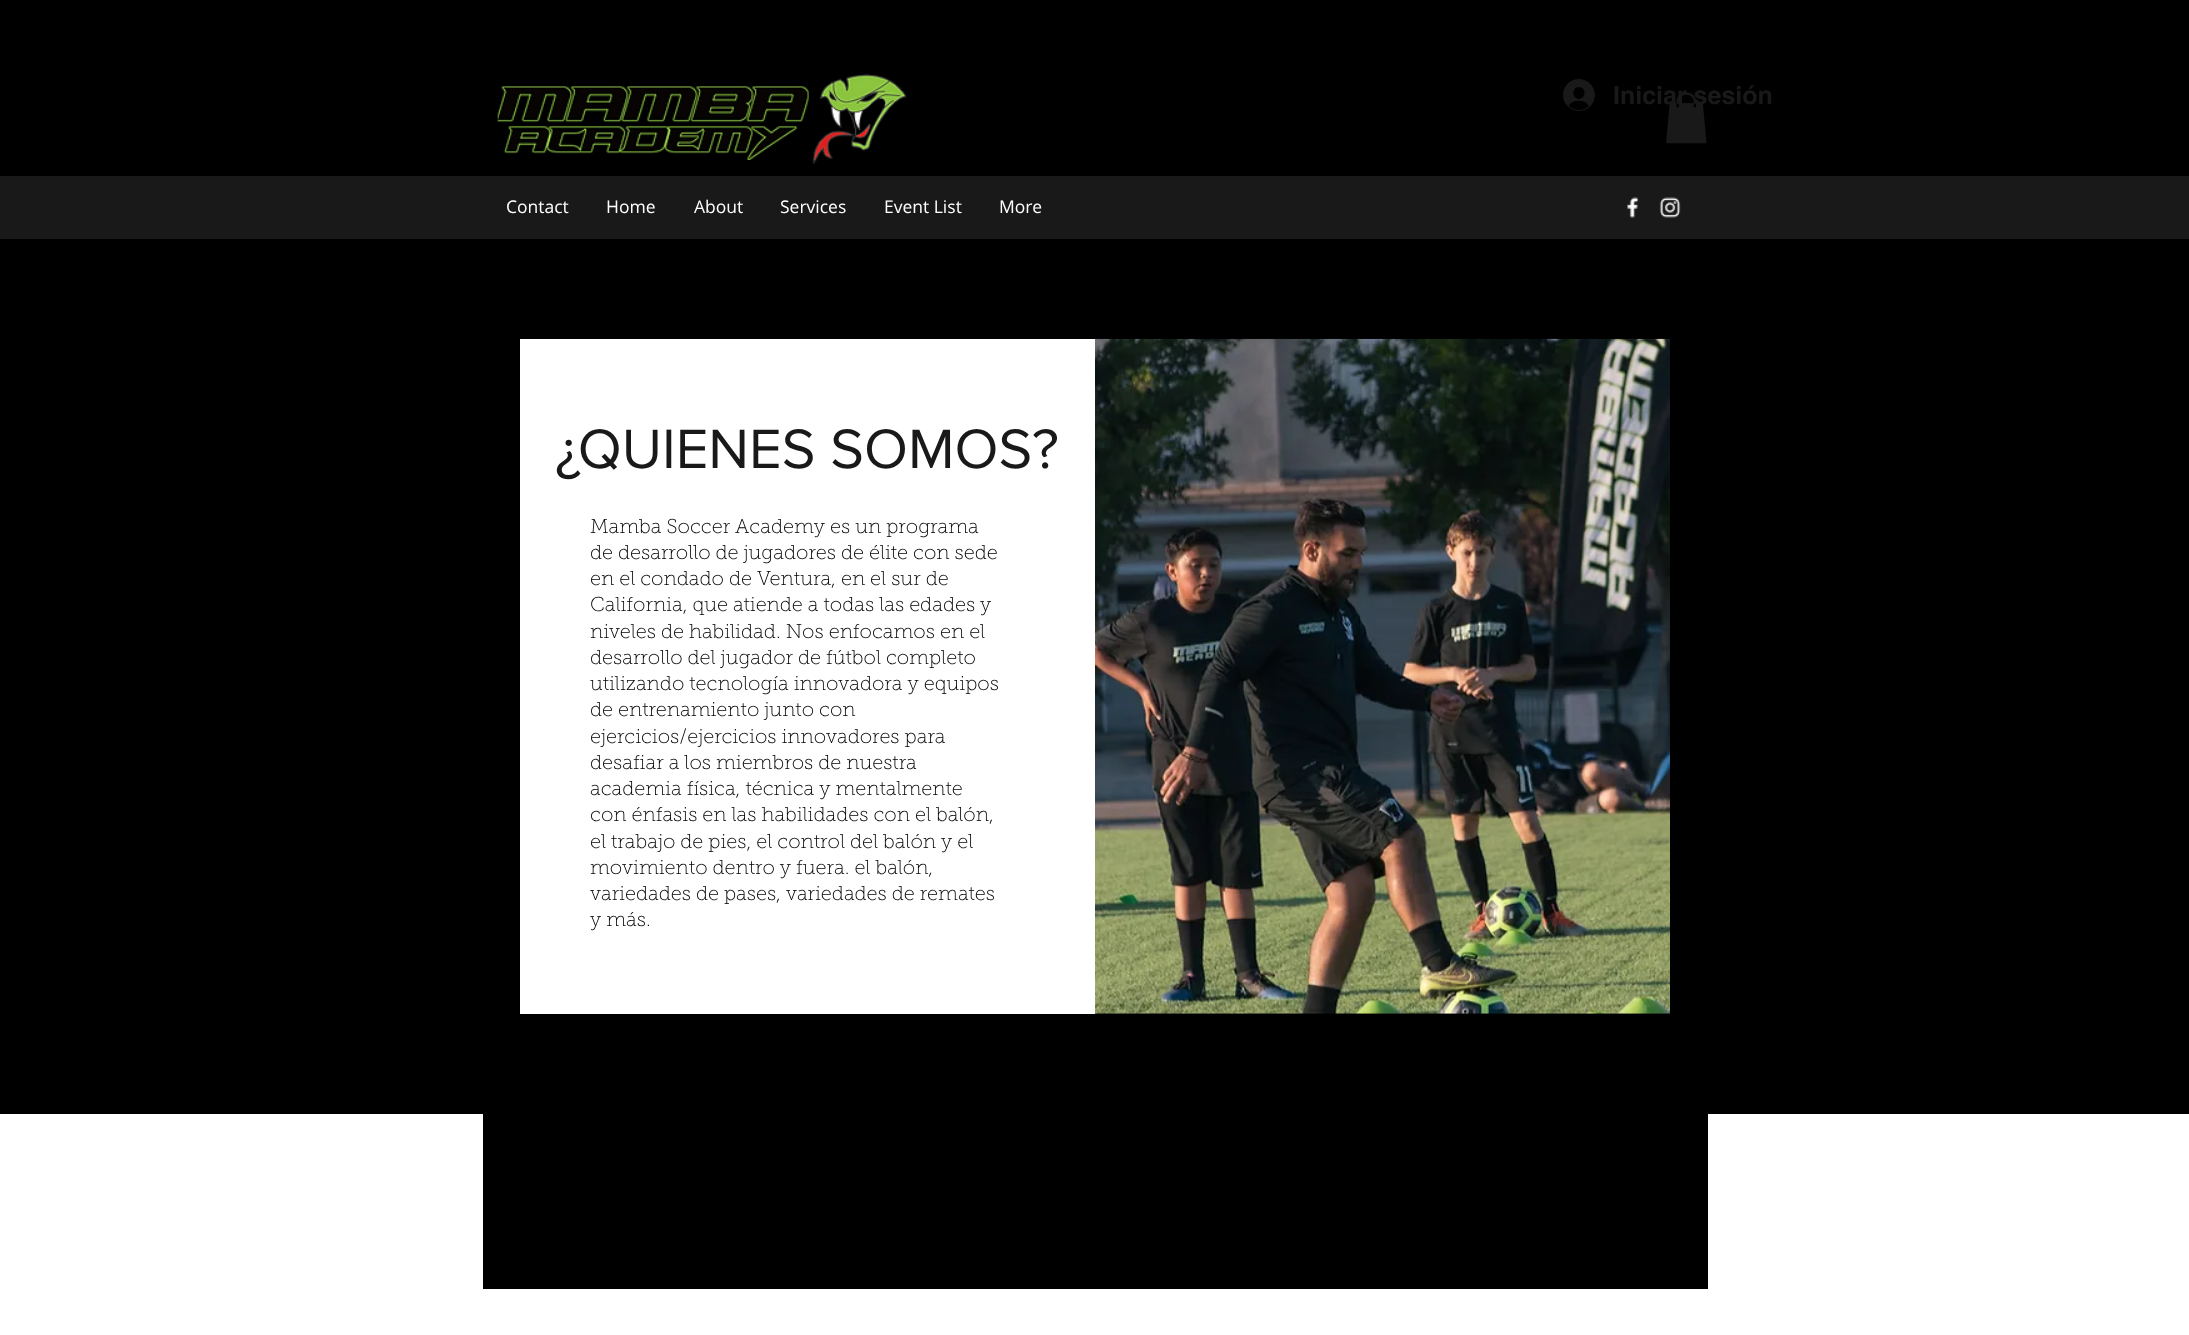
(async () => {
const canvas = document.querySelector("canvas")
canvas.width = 2189
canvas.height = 1335
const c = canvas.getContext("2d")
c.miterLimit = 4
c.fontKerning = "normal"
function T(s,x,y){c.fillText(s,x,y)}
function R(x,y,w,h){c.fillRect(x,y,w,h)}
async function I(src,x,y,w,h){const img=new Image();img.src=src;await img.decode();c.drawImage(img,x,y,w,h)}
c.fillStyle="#fff"
R(0,0,2189,1335)
c.fillStyle="#000"
R(0,0,2189,176)
await I("1.png",497,86,312,74)
await I("2.png",812,73,95,91)
await I("3.png",1563,79,32,32)
c.font="bold 25px helvetica"
c.fillStyle="#191919"
T("Iniciar sesión",1613,104)
await I("4.png",1666,92,41,52)
R(0,176,2189,63)
c.font="17.5px Open Sans"
c.fillStyle="#fff"
T("Contact",506,213)
T("Home",606,213)
T("About",694,213)
T("Services",780,213)
T("Event List",884,213)
T("More",999,213)
await I("5.png",1627,197,12,21)
await I("6.png",1659,197,22,21)
c.fillStyle="#000"
R(0,239,2189,875)
c.fillStyle="#fff"
R(520,339,575,675)
c.font="57.5px 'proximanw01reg'"
c.fillStyle="#191919"
T("¿QUIENES SOMOS?",555,468)
c.font="100 20px 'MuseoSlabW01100'"
c.fillStyle="#000"
T("Mamba Soccer Academy es un programa",590,533)
T("de desarrollo de jugadores de élite con sede",590,559)
T("en el condado de Ventura, en el sur de",590,585)
T("California, que atiende a todas las edades y",590,611)
T("niveles de habilidad. Nos enfocamos en el",590,638)
T("desarrollo del jugador de fútbol completo",590,664)
T("utilizando tecnología innovadora y equipos",590,690)
T("de entrenamiento junto con",590,716)
T("ejercicios/ejercicios innovadores para",590,743)
T("desafiar a los miembros de nuestra",590,769)
T("academia física, técnica y mentalmente",590,795)
T("con énfasis en las habilidades con el balón,",590,821)
T("el trabajo de pies, el control del balón y el",590,848)
T("movimiento dentro y fuera. el balón,",590,874)
T("variedades de pases, variedades de remates",590,900)
T("y más.",590,926)
await I("7.png",1095,338,575,676)
R(483,1114,1225,175)
})()
